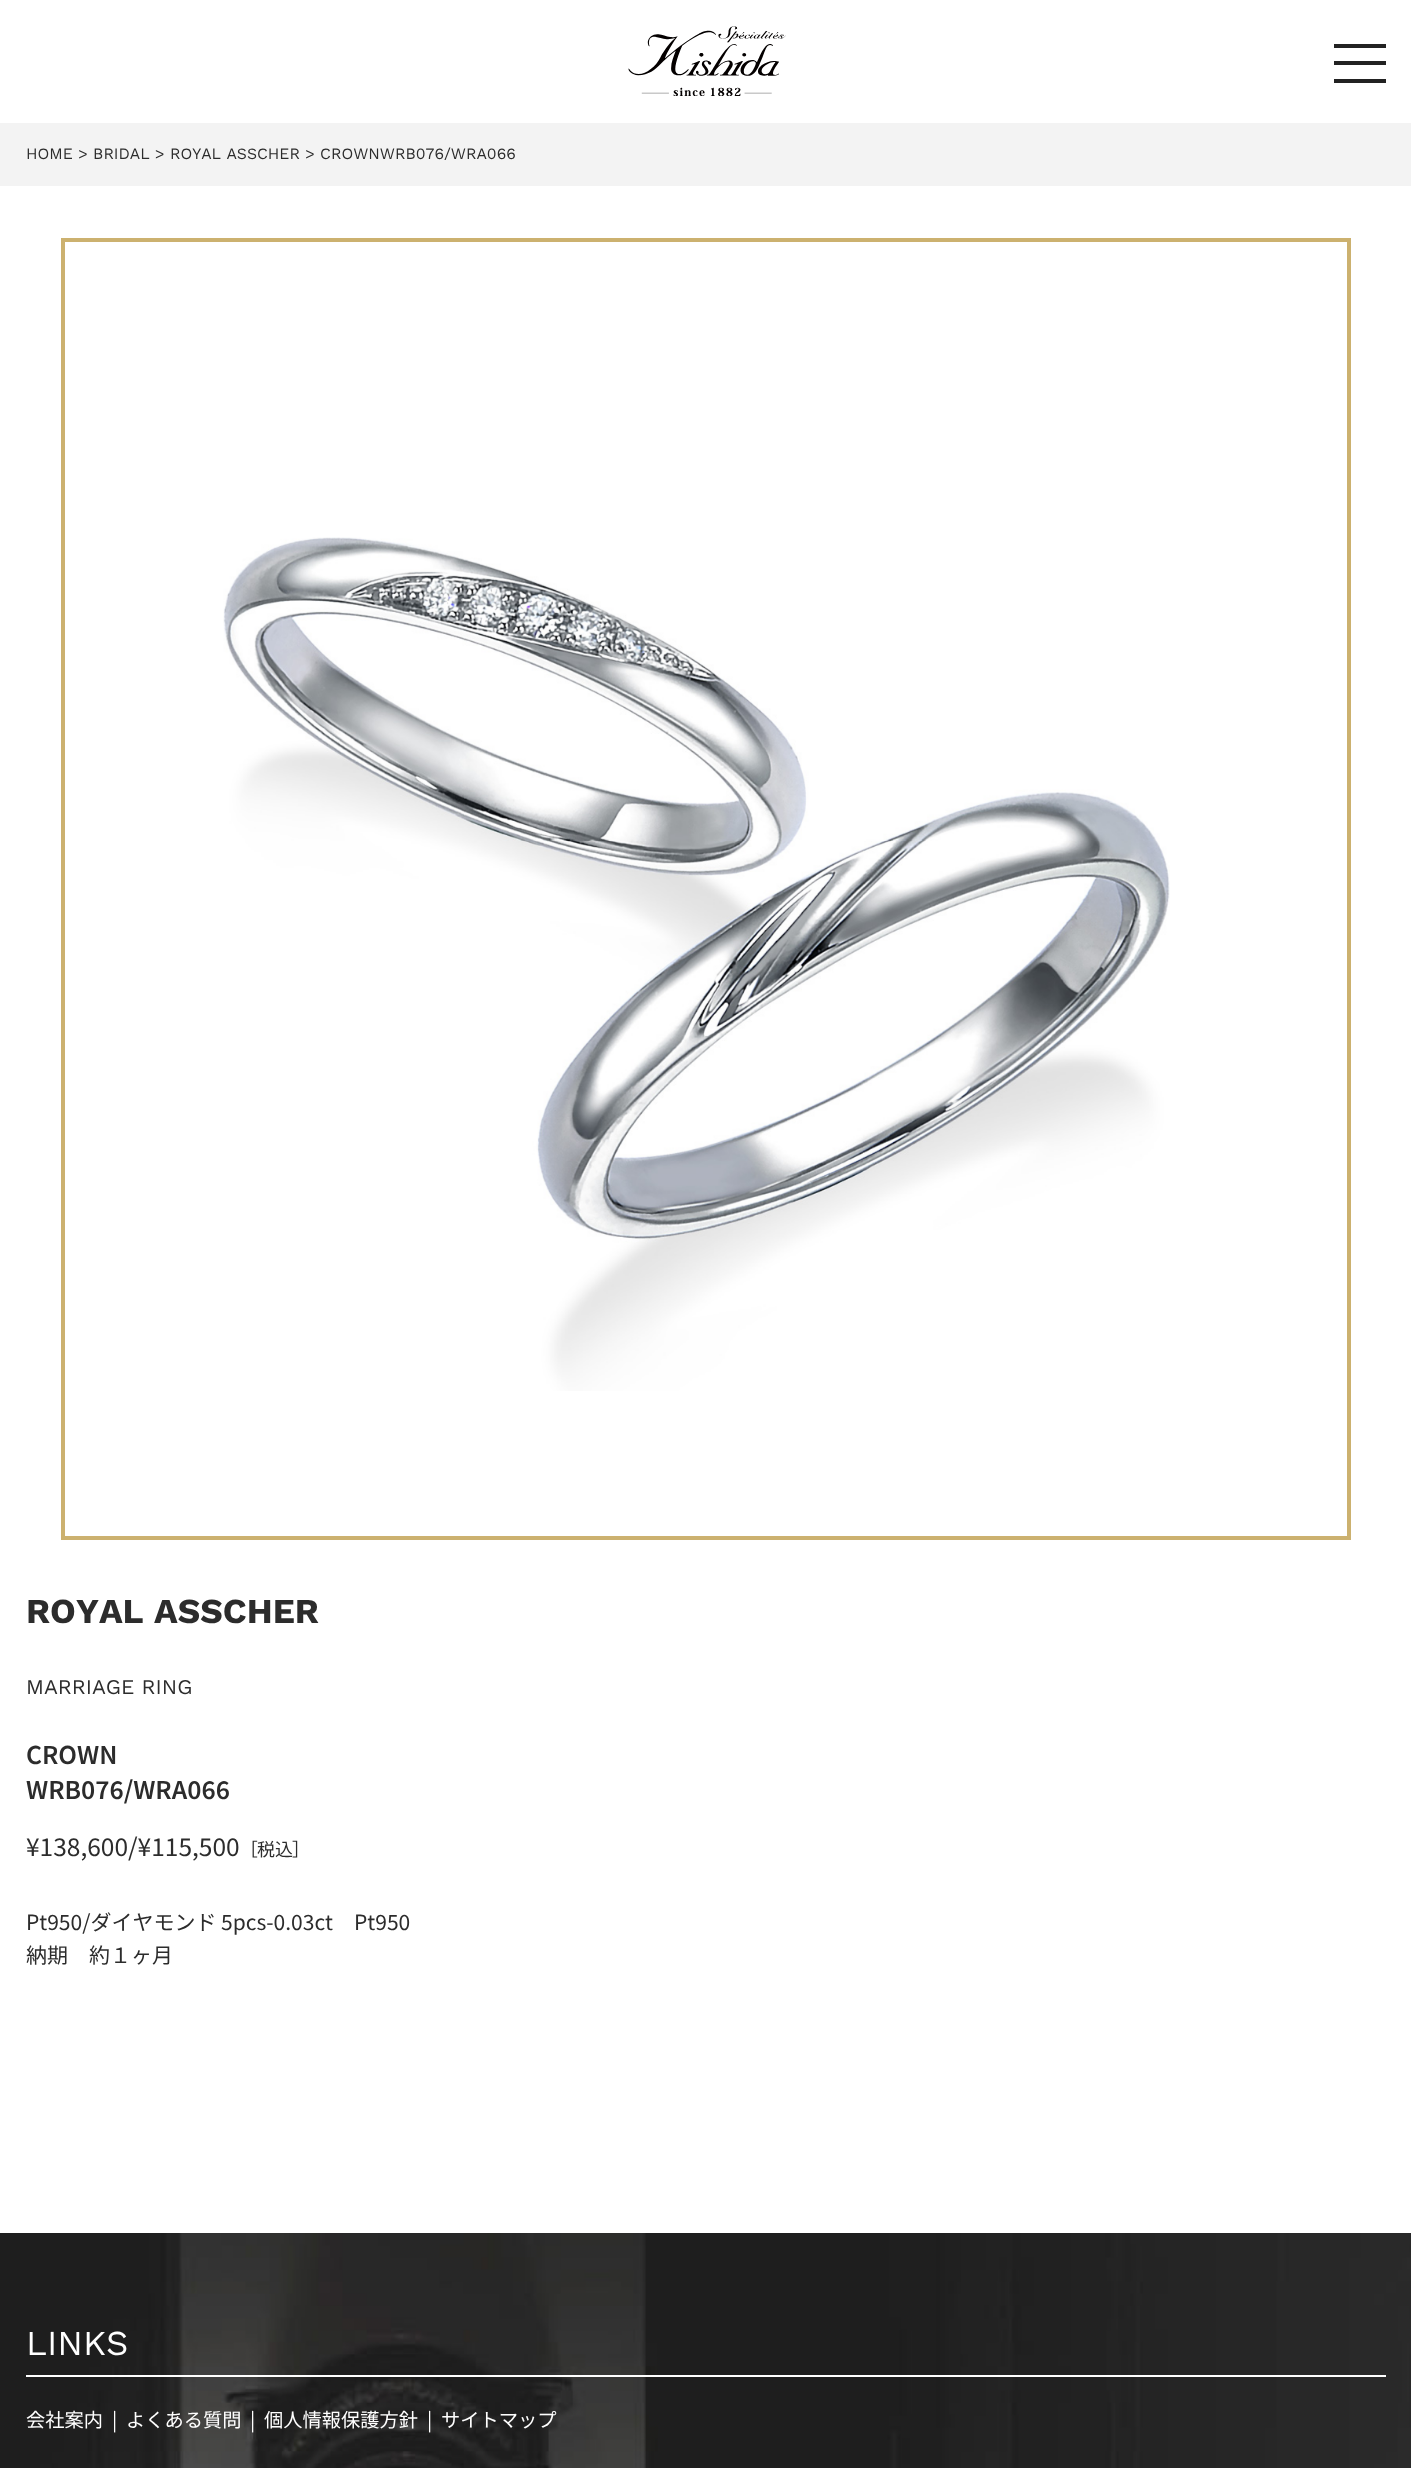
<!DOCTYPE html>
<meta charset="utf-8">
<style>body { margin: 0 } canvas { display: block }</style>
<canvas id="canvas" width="1411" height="2468"></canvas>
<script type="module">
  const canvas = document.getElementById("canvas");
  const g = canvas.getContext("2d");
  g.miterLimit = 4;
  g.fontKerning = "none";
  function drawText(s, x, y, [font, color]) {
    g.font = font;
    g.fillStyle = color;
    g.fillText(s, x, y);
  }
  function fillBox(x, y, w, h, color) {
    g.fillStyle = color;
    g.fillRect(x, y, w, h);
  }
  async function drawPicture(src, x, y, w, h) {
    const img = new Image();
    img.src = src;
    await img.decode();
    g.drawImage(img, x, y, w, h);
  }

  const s1 = ["15.75px Work Sans", "#2C2C2C"];
  const s2 = ["bold 35px Work Sans", "#2C2C2C"];
  const s3 = ["21px Work Sans", "#2C2C2C"];
  const s4 = ["600 24.5px Noto Sans JP", "#2C2C2C"];
  const s5 = ["24.5px Noto Sans JP", "#2C2C2C"];
  const s6 = ["18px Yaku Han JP", "#2C2C2C"];
  const s7 = ["18px Noto Sans JP", "#2C2C2C"];
  const s8 = ["21px Noto Sans JP", "#2C2C2C"];
  const s9 = ["35px Work Sans", "#FFFFFF"];
  const s10 = ["19.25px Noto Sans JP", "#FFFFFF"];

  fillBox(0, 0, 1411, 2468, "#FFFFFF");
  await drawPicture("pic1.png", 628, 26, 158, 70);
  fillBox(1334, 61, 52, 4, "#222222");
  fillBox(1334, 44, 52, 4, "#222222");
  fillBox(1334, 79, 52, 4, "#222222");
  fillBox(0, 123, 1411, 63, "#F3F3F3");
  drawText("HOME > BRIDAL > ROYAL ASSCHER > CROWNWRB076/WRA066", 26, 159, s1);
  g.strokeStyle = "#CCB16F";
  g.lineWidth = 4;
  g.strokeRect(63, 240, 1286, 1298);
  await drawPicture("pic2.png", 223, 537, 947, 854);
  drawText("ROYAL", 26, 1623, s2);
  drawText("ASSCHER", 154, 1623, s2);
  drawText("MARRIAGE RING", 26, 1694, s3);
  drawText("CROWN", 26, 1764, s4);
  drawText("WRB076/WRA066", 26, 1799, s4);
  drawText("¥138,600/¥115,500", 26, 1856, s5);
  drawText("［", 249, 1856, s6);
  drawText("税込", 257, 1856, s7);
  drawText("］", 292, 1856, s6);
  drawText("Pt950/ダイヤモンド 5pcs-0.03ct　Pt950", 26, 1930, s8);
  drawText("納期　約１ヶ月", 26, 1963, s8);
  await drawPicture("pic3.png", 0, 2233, 1411, 235);
  fillBox(26, 2375, 1360, 2, "#FFFFFF");
  drawText("LINKS", 26, 2355, s9);
  drawText("会社案内", 26, 2427, s10);
  drawText("|", 112, 2427, s10);
  drawText("よくある質問", 126, 2427, s10);
  drawText("|", 250, 2427, s10);
  drawText("個人情報保護方針", 264, 2427, s10);
  drawText("|", 427, 2427, s10);
  drawText("サイトマップ", 441, 2427, s10);
</script>
